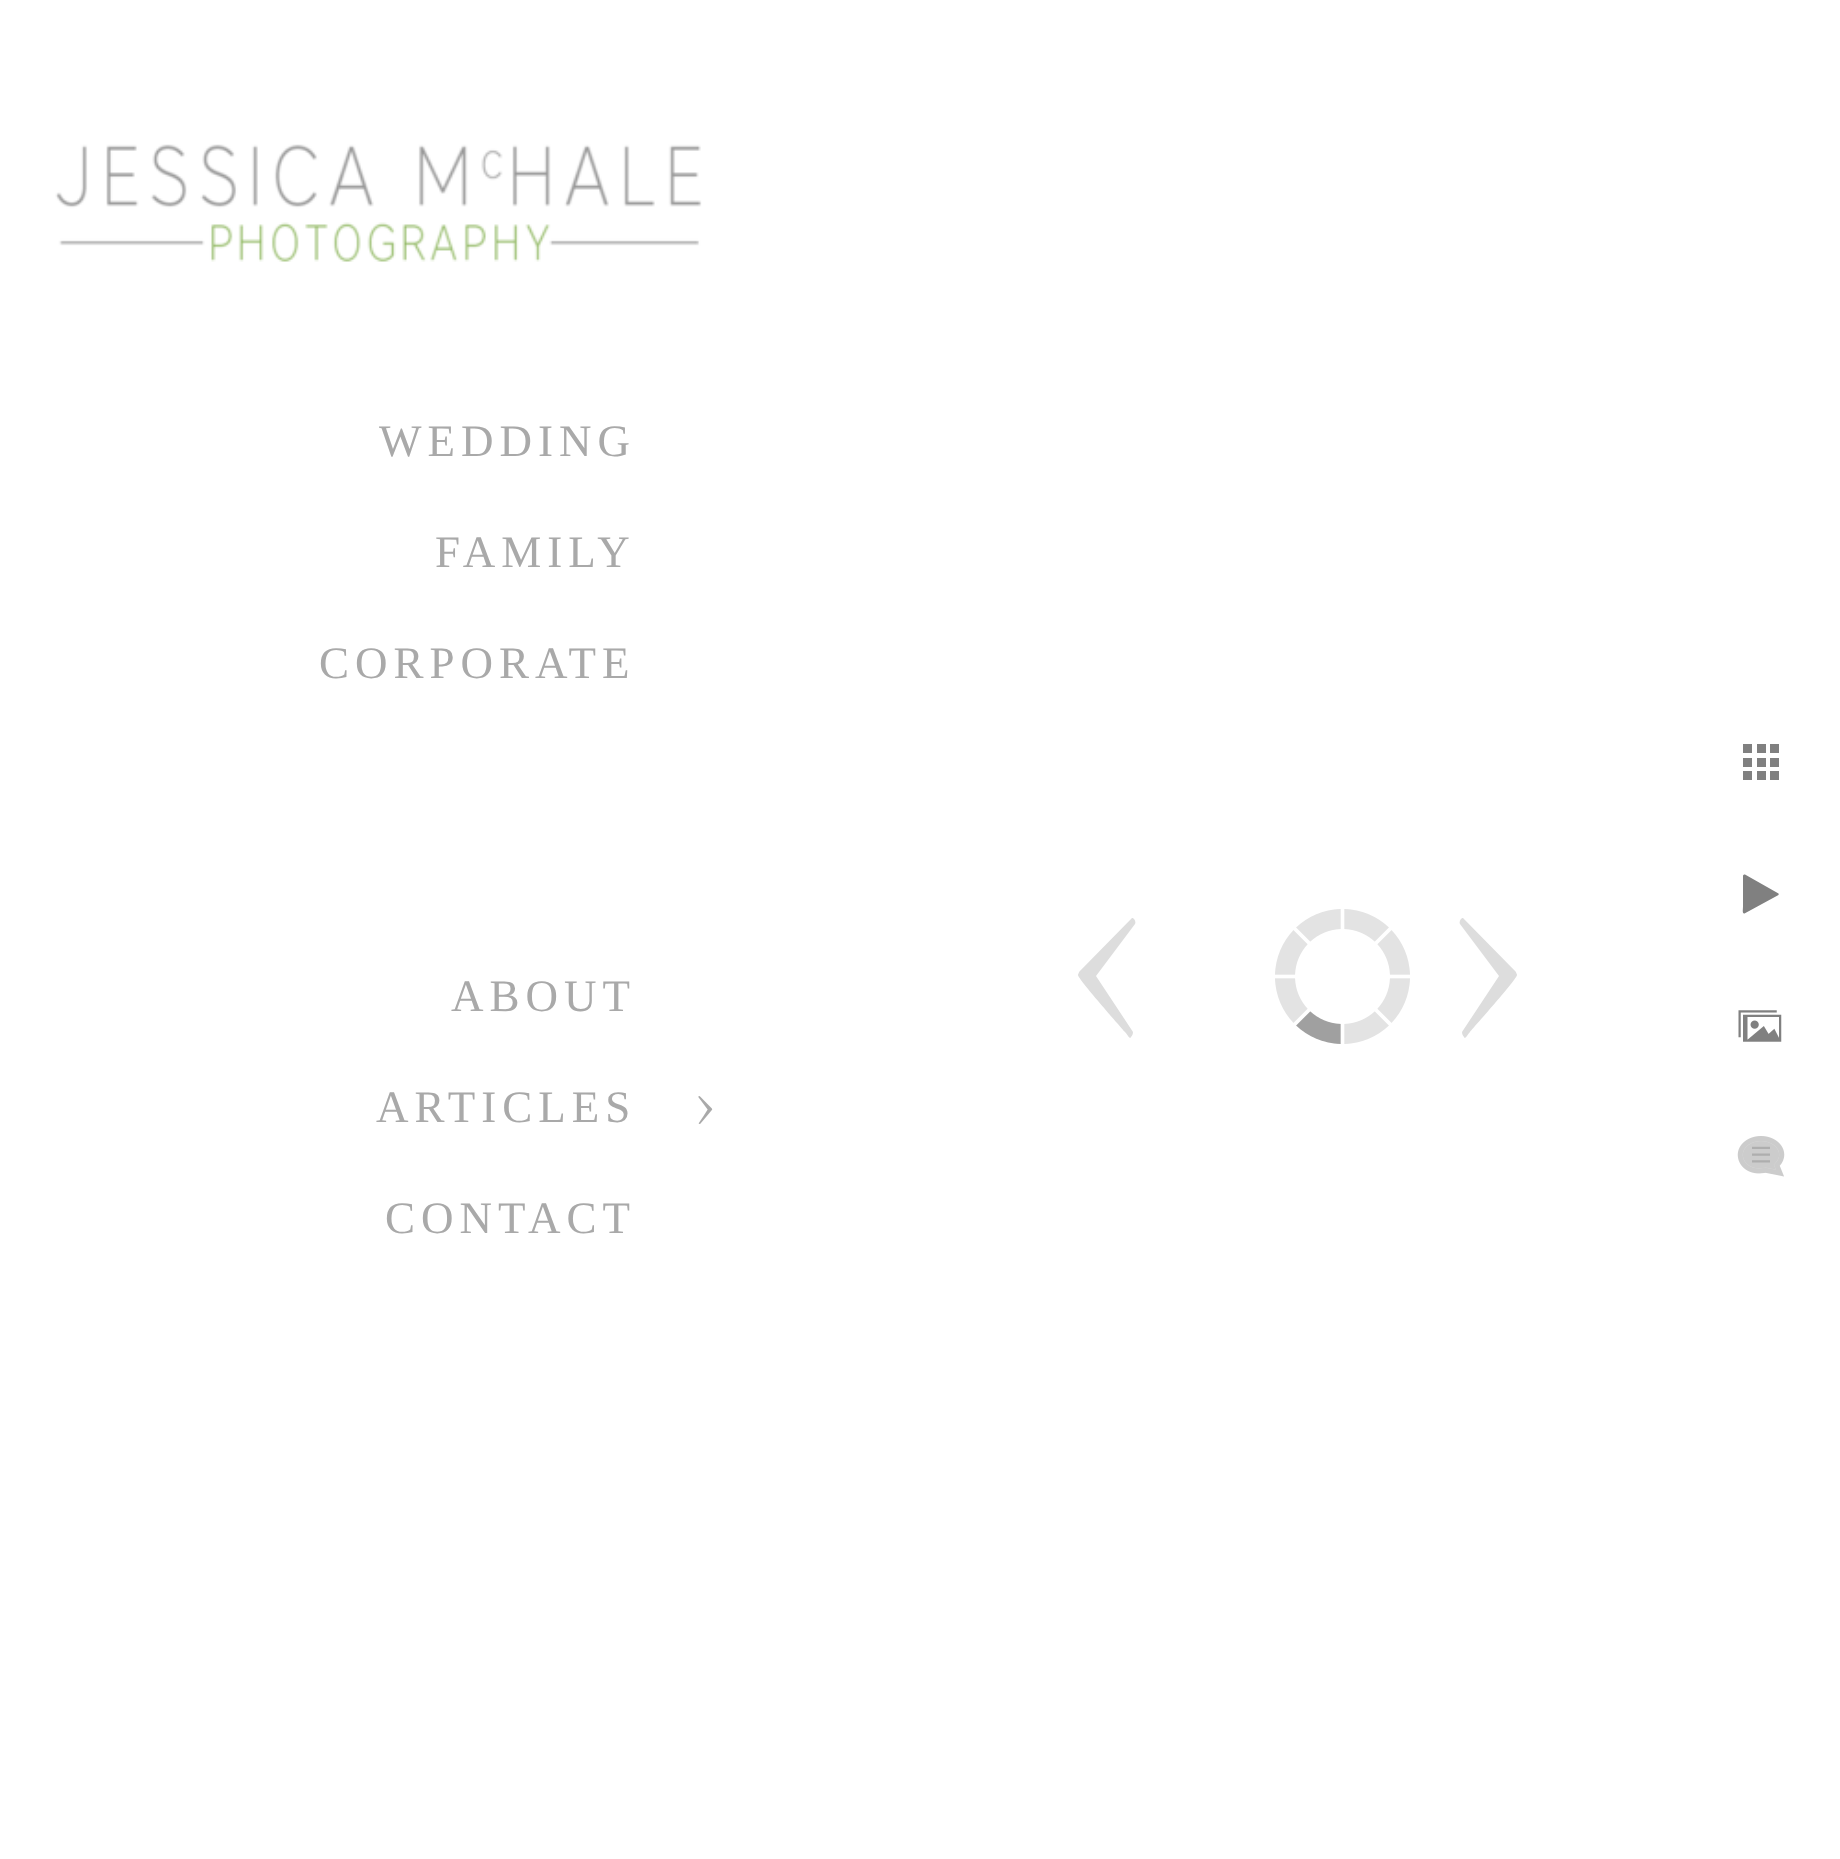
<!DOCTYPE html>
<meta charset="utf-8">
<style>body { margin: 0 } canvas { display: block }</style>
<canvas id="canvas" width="1840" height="1859"></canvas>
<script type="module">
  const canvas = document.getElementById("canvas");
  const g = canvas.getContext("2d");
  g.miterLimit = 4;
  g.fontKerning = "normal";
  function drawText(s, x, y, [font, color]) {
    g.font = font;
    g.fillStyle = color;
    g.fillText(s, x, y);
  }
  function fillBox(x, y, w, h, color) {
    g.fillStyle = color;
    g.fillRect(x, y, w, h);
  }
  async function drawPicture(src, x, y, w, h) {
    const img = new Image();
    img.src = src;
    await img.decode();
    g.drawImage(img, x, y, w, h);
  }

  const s1 = ["45px Liberation Serif", "#A9A9A9"];

  fillBox(0, 0, 1840, 1859, "#FFFFFF");
  await drawPicture("pic1.png", 55, 144, 647, 118);
  g.letterSpacing = "6px";
  drawText("WEDDING", 379, 456, s1);
  drawText("FAMILY", 435, 567, s1);
  drawText("CORPORATE", 319, 678, s1);
  drawText("ABOUT", 451, 1011, s1);
  drawText("ARTICLES", 376, 1122, s1);
  await drawPicture("pic2.png", 698, 1096, 15, 28);
  drawText("CONTACT", 385, 1233, s1);
  g.fillStyle = "#DDDDDD";
  g.beginPath();
  g.moveTo(1078, 975);
  g.bezierCurveTo(1078, 974, 1079, 973, 1079, 972);
  g.lineTo(1132, 918);
  g.bezierCurveTo(1133, 918, 1133, 918, 1134, 919);
  g.bezierCurveTo(1135, 920, 1136, 923, 1135, 924);
  g.lineTo(1096, 976);
  g.lineTo(1133, 1032);
  g.bezierCurveTo(1133, 1034, 1132, 1036, 1131, 1037);
  g.bezierCurveTo(1130, 1040, 1127, 1034, 1125, 1032);
  g.bezierCurveTo(1120, 1026, 1078, 979, 1078, 975);
  g.closePath();
  g.fill();
  await drawPicture("pic3.png", 1275, 909, 135, 135);
  g.beginPath();
  g.moveTo(1517, 975);
  g.bezierCurveTo(1517, 974, 1516, 973, 1516, 972);
  g.lineTo(1463, 918);
  g.bezierCurveTo(1462, 918, 1462, 918, 1461, 919);
  g.bezierCurveTo(1460, 920, 1459, 923, 1460, 924);
  g.lineTo(1499, 976);
  g.lineTo(1462, 1032);
  g.bezierCurveTo(1462, 1034, 1463, 1036, 1464, 1037);
  g.bezierCurveTo(1465, 1040, 1468, 1034, 1470, 1032);
  g.bezierCurveTo(1475, 1026, 1517, 979, 1517, 975);
  g.closePath();
  g.fill();
  await drawPicture("pic4.png", 1743, 744, 36, 36);
  g.fillStyle = "#808080";
  g.beginPath();
  g.moveTo(1778.5, 895);
  g.lineTo(1744.5, 913.5);
  g.bezierCurveTo(1742, 914, 1743, 909.5, 1743, 906.5);
  g.lineTo(1743, 875.5);
  g.lineTo(1744, 874.5);
  g.lineTo(1745, 874.5);
  g.lineTo(1778.5, 893.5);
  g.bezierCurveTo(1779, 894, 1778.5, 894.5, 1778.5, 895);
  g.closePath();
  g.fill();
  await drawPicture("pic5.png", 1738, 1010, 44, 32);
  await drawPicture("pic6.png", 1737, 1136, 48, 41);
</script>
